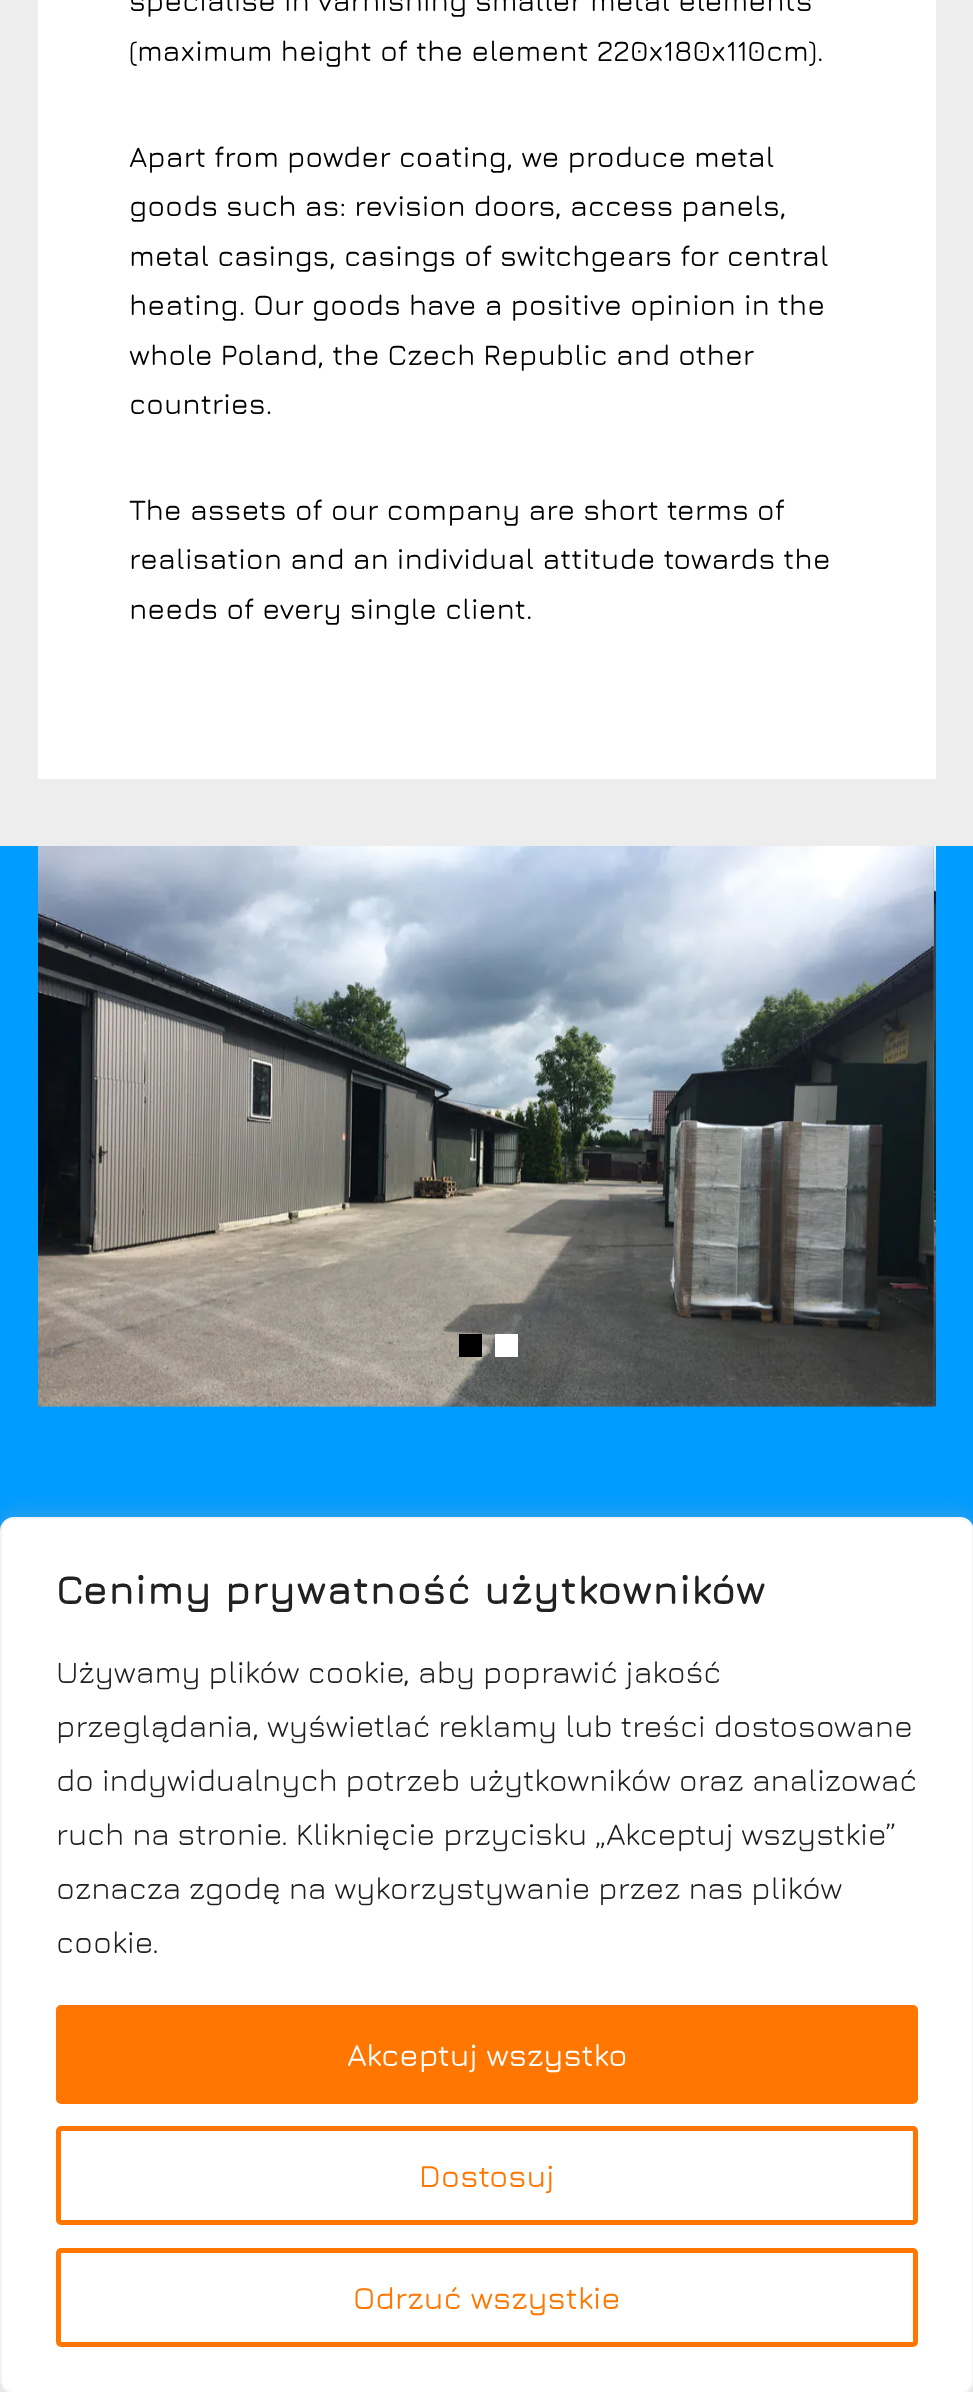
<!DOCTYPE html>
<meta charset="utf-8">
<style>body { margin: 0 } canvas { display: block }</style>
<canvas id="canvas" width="973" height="2392"></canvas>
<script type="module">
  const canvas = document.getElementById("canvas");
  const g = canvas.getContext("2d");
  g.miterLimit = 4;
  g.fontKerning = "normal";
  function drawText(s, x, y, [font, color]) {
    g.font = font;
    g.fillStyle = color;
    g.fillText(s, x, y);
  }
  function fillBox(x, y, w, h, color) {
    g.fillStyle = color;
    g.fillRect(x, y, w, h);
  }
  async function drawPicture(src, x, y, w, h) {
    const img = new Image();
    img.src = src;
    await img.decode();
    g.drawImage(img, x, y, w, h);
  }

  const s1 = ["500 29.25px Jura", "#000000"];
  const s2 = ["bold 40.5px Jura", "#212121"];
  const s3 = ["31.5px Jura", "#212121"];
  const s4 = ["500 31.5px Jura", "#FFFFFF"];
  const s5 = ["500 31.5px Jura", "#FF7700"];

  fillBox(0, 0, 973, 2392, "#EDEDED");
  fillBox(38, 0, 898, 779, "#FFFFFF");
  drawText("specialise in varnishing smaller metal elements", 129, 11, s1);
  drawText("(maximum height of the element 220x180x110cm).", 129, 61, s1);
  drawText("Apart from powder coating, we produce metal", 129, 167, s1);
  drawText("goods such as: revision doors, access panels,", 129, 216, s1);
  drawText("metal casings, casings of switchgears for central", 129, 266, s1);
  drawText("heating. Our goods have a positive opinion in the", 129, 315, s1);
  drawText("whole Poland, the Czech Republic and other", 129, 365, s1);
  drawText("countries.", 129, 414, s1);
  drawText("The assets of our company are short terms of", 129, 520, s1);
  drawText("realisation and an individual attitude towards the", 129, 569, s1);
  drawText("needs of every single client.", 129, 619, s1);
  fillBox(0, 846, 973, 685, "#009CFF");
  await drawPicture("pic1.png", 38, 846, 896, 561);
  await drawPicture("pic2.png", 934, 846, 2, 561);
  fillBox(459, 1334, 23, 23, "#000000");
  fillBox(495, 1334, 23, 23, "#FFFFFF");
  g.fillStyle = "rgba(172, 171, 171, 0.3)";
  g.filter = "blur(11px)";
  g.beginPath();
  g.roundRect(0, 1514, 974, 878, 14);
  g.fill();
  g.filter = "none";
  g.fillStyle = "#FFFFFF";
  g.beginPath();
  g.roundRect(1, 1518, 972, 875, 13);
  g.fill();
  g.strokeStyle = "#F4F4F4";
  g.lineWidth = 2;
  g.stroke();
  drawText("Cenimy prywatność użytkowników", 56, 1604, s2);
  drawText("Używamy plików cookie, aby poprawić jakość", 56, 1683, s3);
  drawText("przeglądania, wyświetlać reklamy lub treści dostosowane", 56, 1737, s3);
  drawText("do indywidualnych potrzeb użytkowników oraz analizować", 56, 1791, s3);
  drawText("ruch na stronie. Kliknięcie przycisku „Akceptuj wszystkie”", 56, 1845, s3);
  drawText("oznacza zgodę na wykorzystywanie przez nas plików", 56, 1899, s3);
  drawText("cookie.", 56, 1953, s3);
  g.fillStyle = "#FF7700";
  g.beginPath();
  g.roundRect(58.5, 2007.5, 857, 94, 2.5);
  g.fill();
  g.strokeStyle = "#FF7700";
  g.lineWidth = 5;
  g.stroke();
  drawText("Akceptuj wszystko", 347, 2066, s4);
  g.beginPath();
  g.roundRect(58.5, 2128.5, 857, 94, 2.5);
  g.stroke();
  drawText("Dostosuj", 419, 2187, s5);
  g.beginPath();
  g.roundRect(58.5, 2250.5, 857, 94, 2.5);
  g.stroke();
  drawText("Odrzuć wszystkie", 353, 2309, s5);
</script>
